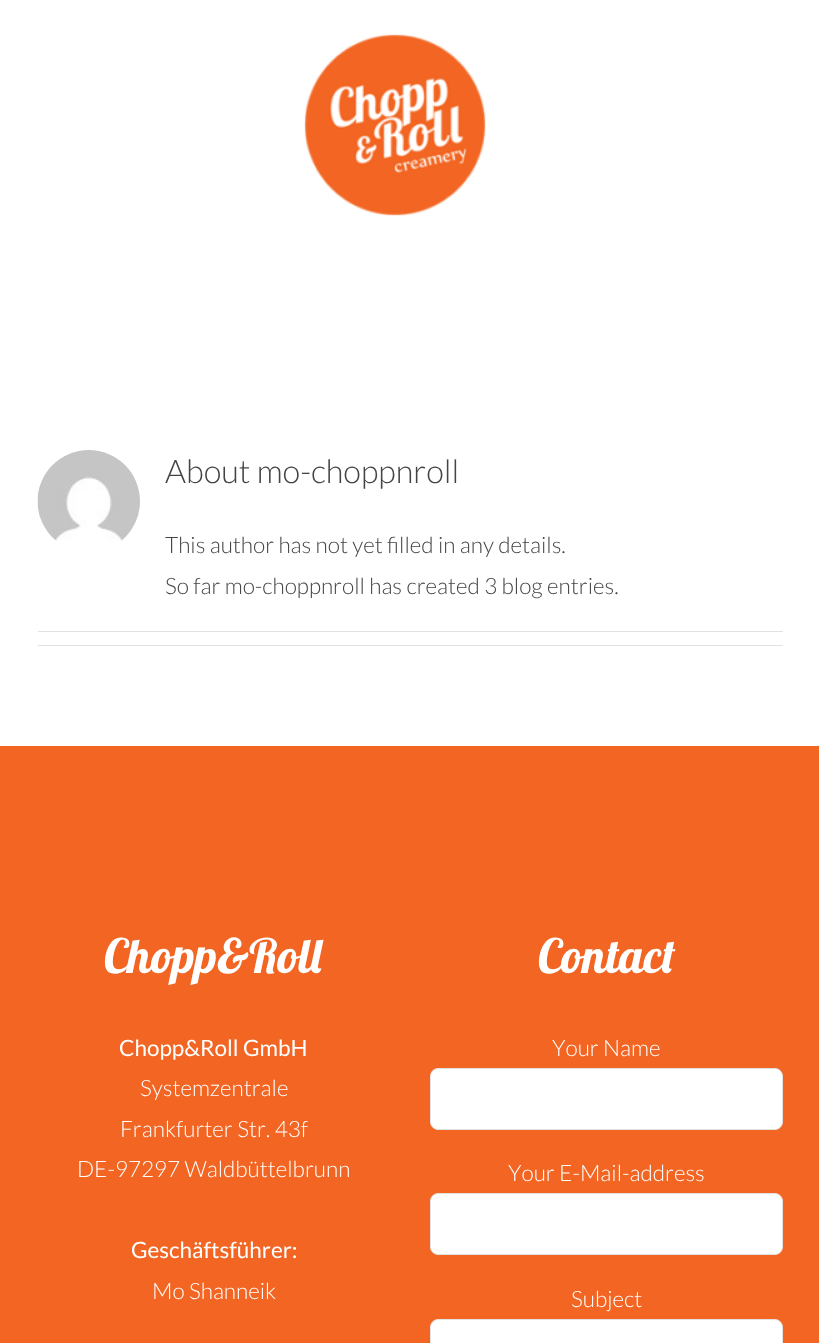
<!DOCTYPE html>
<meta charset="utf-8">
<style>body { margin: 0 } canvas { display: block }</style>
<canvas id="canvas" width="819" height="1343"></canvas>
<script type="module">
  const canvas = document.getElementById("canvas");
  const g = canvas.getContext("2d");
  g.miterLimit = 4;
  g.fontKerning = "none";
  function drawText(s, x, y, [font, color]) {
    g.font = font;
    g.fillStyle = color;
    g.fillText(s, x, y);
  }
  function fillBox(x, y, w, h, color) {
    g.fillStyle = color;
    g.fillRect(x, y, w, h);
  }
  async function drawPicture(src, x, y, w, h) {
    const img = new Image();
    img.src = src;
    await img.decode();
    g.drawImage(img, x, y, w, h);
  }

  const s1 = ["300 32.5px Lato", "#444444"];
  const s2 = ["300 22.5px Lato", "#444444"];
  const s3 = ["47.5px Lobster", "#FFFFFF"];
  const s4 = ["22.5px Lato", "#FFFFFF"];
  const s5 = ["300 22.5px Lato", "#FFFFFF"];

  fillBox(0, 0, 819, 1343, "#FFFFFF");
  await drawPicture("pic1.png", 304, 34, 182, 182);
  await drawPicture("pic2.png", 37, 450, 103, 91);
  drawText("About mo-choppnroll", 165, 483, s1);
  drawText("This author has not yet filled in any details.", 165, 553, s2);
  drawText("So far mo-choppnroll has created 3 blog entries.", 165, 594, s2);
  fillBox(38, 631, 745, 1, "#E2E2E2");
  fillBox(38, 645, 745, 1, "#E2E2E2");
  fillBox(0, 746, 819, 597, "#F26522");
  drawText("Chopp&Roll", 104, 973, s3);
  drawText("Chopp&Roll GmbH", 119, 1056, s4);
  drawText("Systemzentrale", 140, 1096, s5);
  drawText("Frankfurter Str. 43f", 120, 1137, s5);
  drawText("DE-97297 Waldbüttelbrunn", 77, 1177, s5);
  drawText("Geschäftsführer:", 131, 1258, s4);
  drawText("Mo Shanneik", 152, 1299, s5);
  drawText("Contact", 538, 973, s3);
  drawText("Your Name", 552, 1056, s5);
  g.beginPath();
  g.roundRect(430.5, 1068.5, 352, 61, 7.5);
  g.fill();
  g.strokeStyle = "#E2E2E2";
  g.stroke();
  drawText("Your E-Mail-address", 508, 1181, s5);
  g.beginPath();
  g.roundRect(430.5, 1193.5, 352, 61, 7.5);
  g.fill();
  g.stroke();
  drawText("Subject", 571, 1307, s5);
  g.beginPath();
  g.roundRect(430.5, 1319.5, 352, 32, 7.5);
  g.fill();
  g.stroke();
</script>
